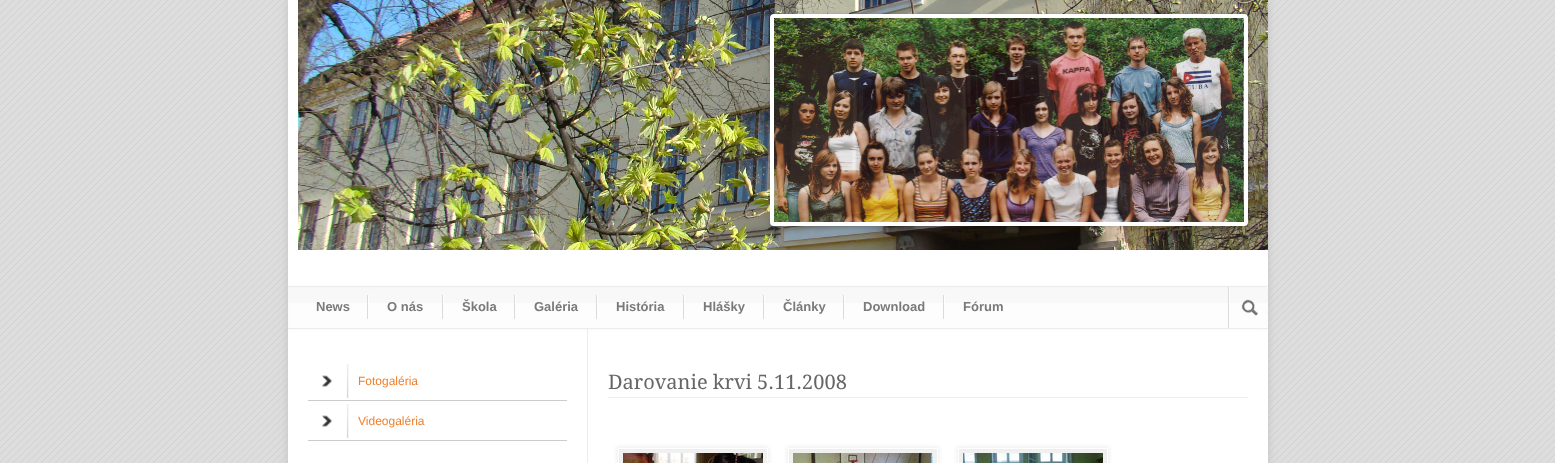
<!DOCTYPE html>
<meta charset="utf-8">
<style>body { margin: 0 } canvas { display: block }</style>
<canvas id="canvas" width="1555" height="463"></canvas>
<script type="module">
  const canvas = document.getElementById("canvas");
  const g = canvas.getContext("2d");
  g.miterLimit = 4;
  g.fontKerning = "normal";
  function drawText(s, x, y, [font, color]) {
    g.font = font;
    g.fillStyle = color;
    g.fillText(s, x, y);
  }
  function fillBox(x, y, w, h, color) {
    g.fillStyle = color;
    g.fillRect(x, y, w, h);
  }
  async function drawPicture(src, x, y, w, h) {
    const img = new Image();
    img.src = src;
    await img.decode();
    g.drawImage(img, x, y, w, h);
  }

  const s1 = ["bold 13px Liberation Sans", "#7A7A7A"];
  const s2 = ["12px Liberation Sans", "#EF7F2C"];
  const s3 = ["20px Droid Serif", "#666666"];

  fillBox(0, 0, 1555, 463, "#DDDDDD");
  await drawPicture("pic1.png", 0, 0, 1555, 463);
  g.fillStyle = "#C2C2C2";
  g.filter = "blur(4px)";
  g.beginPath();
  g.rect(288, 0, 980, 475);
  g.fill();
  g.filter = "none";
  fillBox(288, 0, 980, 463, "#FFFFFF");
  await drawPicture("pic2.png", 298, 0, 970, 250);
  g.save();
  g.beginPath();
  g.moveTo(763, 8);
  g.lineTo(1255, 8);
  g.lineTo(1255, 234);
  g.lineTo(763, 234);
  g.closePath();
  g.moveTo(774, 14);
  g.lineTo(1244, 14);
  g.bezierCurveTo(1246, 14, 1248, 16, 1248, 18);
  g.lineTo(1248, 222);
  g.bezierCurveTo(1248, 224, 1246, 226, 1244, 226);
  g.lineTo(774, 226);
  g.bezierCurveTo(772, 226, 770, 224, 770, 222);
  g.lineTo(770, 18);
  g.bezierCurveTo(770, 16, 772, 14, 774, 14);
  g.closePath();
  g.clip("evenodd");
  g.fillStyle = "rgba(0, 0, 0, 0.2)";
  g.filter = "blur(2px)";
  g.beginPath();
  g.roundRect(770, 15, 478, 212, 4);
  g.fill();
  g.filter = "none";
  g.restore();
  g.beginPath();
  g.roundRect(772, 16, 474, 208, 2);
  g.strokeStyle = "#FFFFFF";
  g.lineWidth = 4;
  g.stroke();
  await drawPicture("pic3.png", 774, 18, 469, 204);
  g.save();
  g.beginPath();
  g.rect(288, 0, 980, 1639);
  g.clip();
  g.fillStyle = "#F5F5F5";
  g.filter = "blur(2.5px)";
  g.beginPath();
  g.rect(289, 288, 978, 41);
  g.fill();
  g.filter = "none";
  g.restore();
  fillBox(289, 288, 978, 40, "#FDFDFD");
  await drawPicture("pic4.png", 288, 287, 980, 16);
  fillBox(288, 286, 980, 1, "#ECECEC");
  fillBox(288, 328, 980, 1, "#ECECEC");
  fillBox(367, 295, 1, 24, "#DBDBDB");
  drawText("News", 316, 311, s1);
  fillBox(442, 295, 1, 24, "#DBDBDB");
  fillBox(368, 295, 1, 8, "#FFFFFF");
  drawText("O nás", 387, 311, s1);
  fillBox(514, 295, 1, 24, "#DBDBDB");
  fillBox(443, 295, 1, 8, "#FFFFFF");
  drawText("Škola", 462, 311, s1);
  fillBox(596, 295, 1, 24, "#DBDBDB");
  fillBox(515, 295, 1, 8, "#FFFFFF");
  drawText("Galéria", 534, 311, s1);
  fillBox(683, 295, 1, 24, "#DBDBDB");
  fillBox(597, 295, 1, 8, "#FFFFFF");
  drawText("História", 616, 311, s1);
  fillBox(763, 295, 1, 24, "#DBDBDB");
  fillBox(684, 295, 1, 8, "#FFFFFF");
  drawText("Hlášky", 703, 311, s1);
  fillBox(843, 295, 1, 24, "#DBDBDB");
  fillBox(764, 295, 1, 8, "#FFFFFF");
  drawText("Články", 783, 311, s1);
  fillBox(943, 295, 1, 24, "#DBDBDB");
  fillBox(844, 295, 1, 8, "#FFFFFF");
  drawText("Download", 863, 311, s1);
  fillBox(944, 295, 1, 8, "#FFFFFF");
  drawText("Fórum", 963, 311, s1);
  fillBox(1228, 287, 1, 41, "#DBDBDB");
  fillBox(1229, 287, 1, 16, "#FFFFFF");
  await drawPicture("pic5.png", 1241, 299, 17, 17);
  fillBox(587, 329, 1, 134, "#ECECEC");
  fillBox(308, 400, 259, 1, "#CCCCCC");
  await drawPicture("pic6.png", 322, 364, 27, 34);
  drawText("Fotogaléria", 358, 385, s2);
  fillBox(308, 440, 259, 1, "#CCCCCC");
  await drawPicture("pic6.png", 322, 404, 27, 34);
  drawText("Videogaléria", 358, 425, s2);
  fillBox(608, 397, 640, 1, "#ECECEC");
  drawText("Darovanie krvi 5.11.2008", 608, 389, s3);
  g.fillStyle = "#ECECEC";
  g.filter = "blur(2px)";
  g.beginPath();
  g.rect(617, 447, 152, 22);
  g.fill();
  g.filter = "none";
  fillBox(620, 450, 146, 13, "#F0F0F0");
  g.lineWidth = 1;
  g.strokeRect(618.5, 448.5, 149, 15);
  await drawPicture("pic7.png", 623, 453, 140, 10);
  g.fillStyle = "#ECECEC";
  g.filter = "blur(2px)";
  g.beginPath();
  g.rect(787, 447, 152, 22);
  g.fill();
  g.filter = "none";
  fillBox(790, 450, 146, 13, "#F0F0F0");
  g.strokeRect(788.5, 448.5, 149, 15);
  await drawPicture("pic8.png", 793, 453, 140, 10);
  g.fillStyle = "#ECECEC";
  g.filter = "blur(2px)";
  g.beginPath();
  g.rect(957, 447, 152, 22);
  g.fill();
  g.filter = "none";
  fillBox(960, 450, 146, 13, "#F0F0F0");
  g.strokeRect(958.5, 448.5, 149, 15);
  await drawPicture("pic9.png", 963, 453, 140, 10);
</script>
